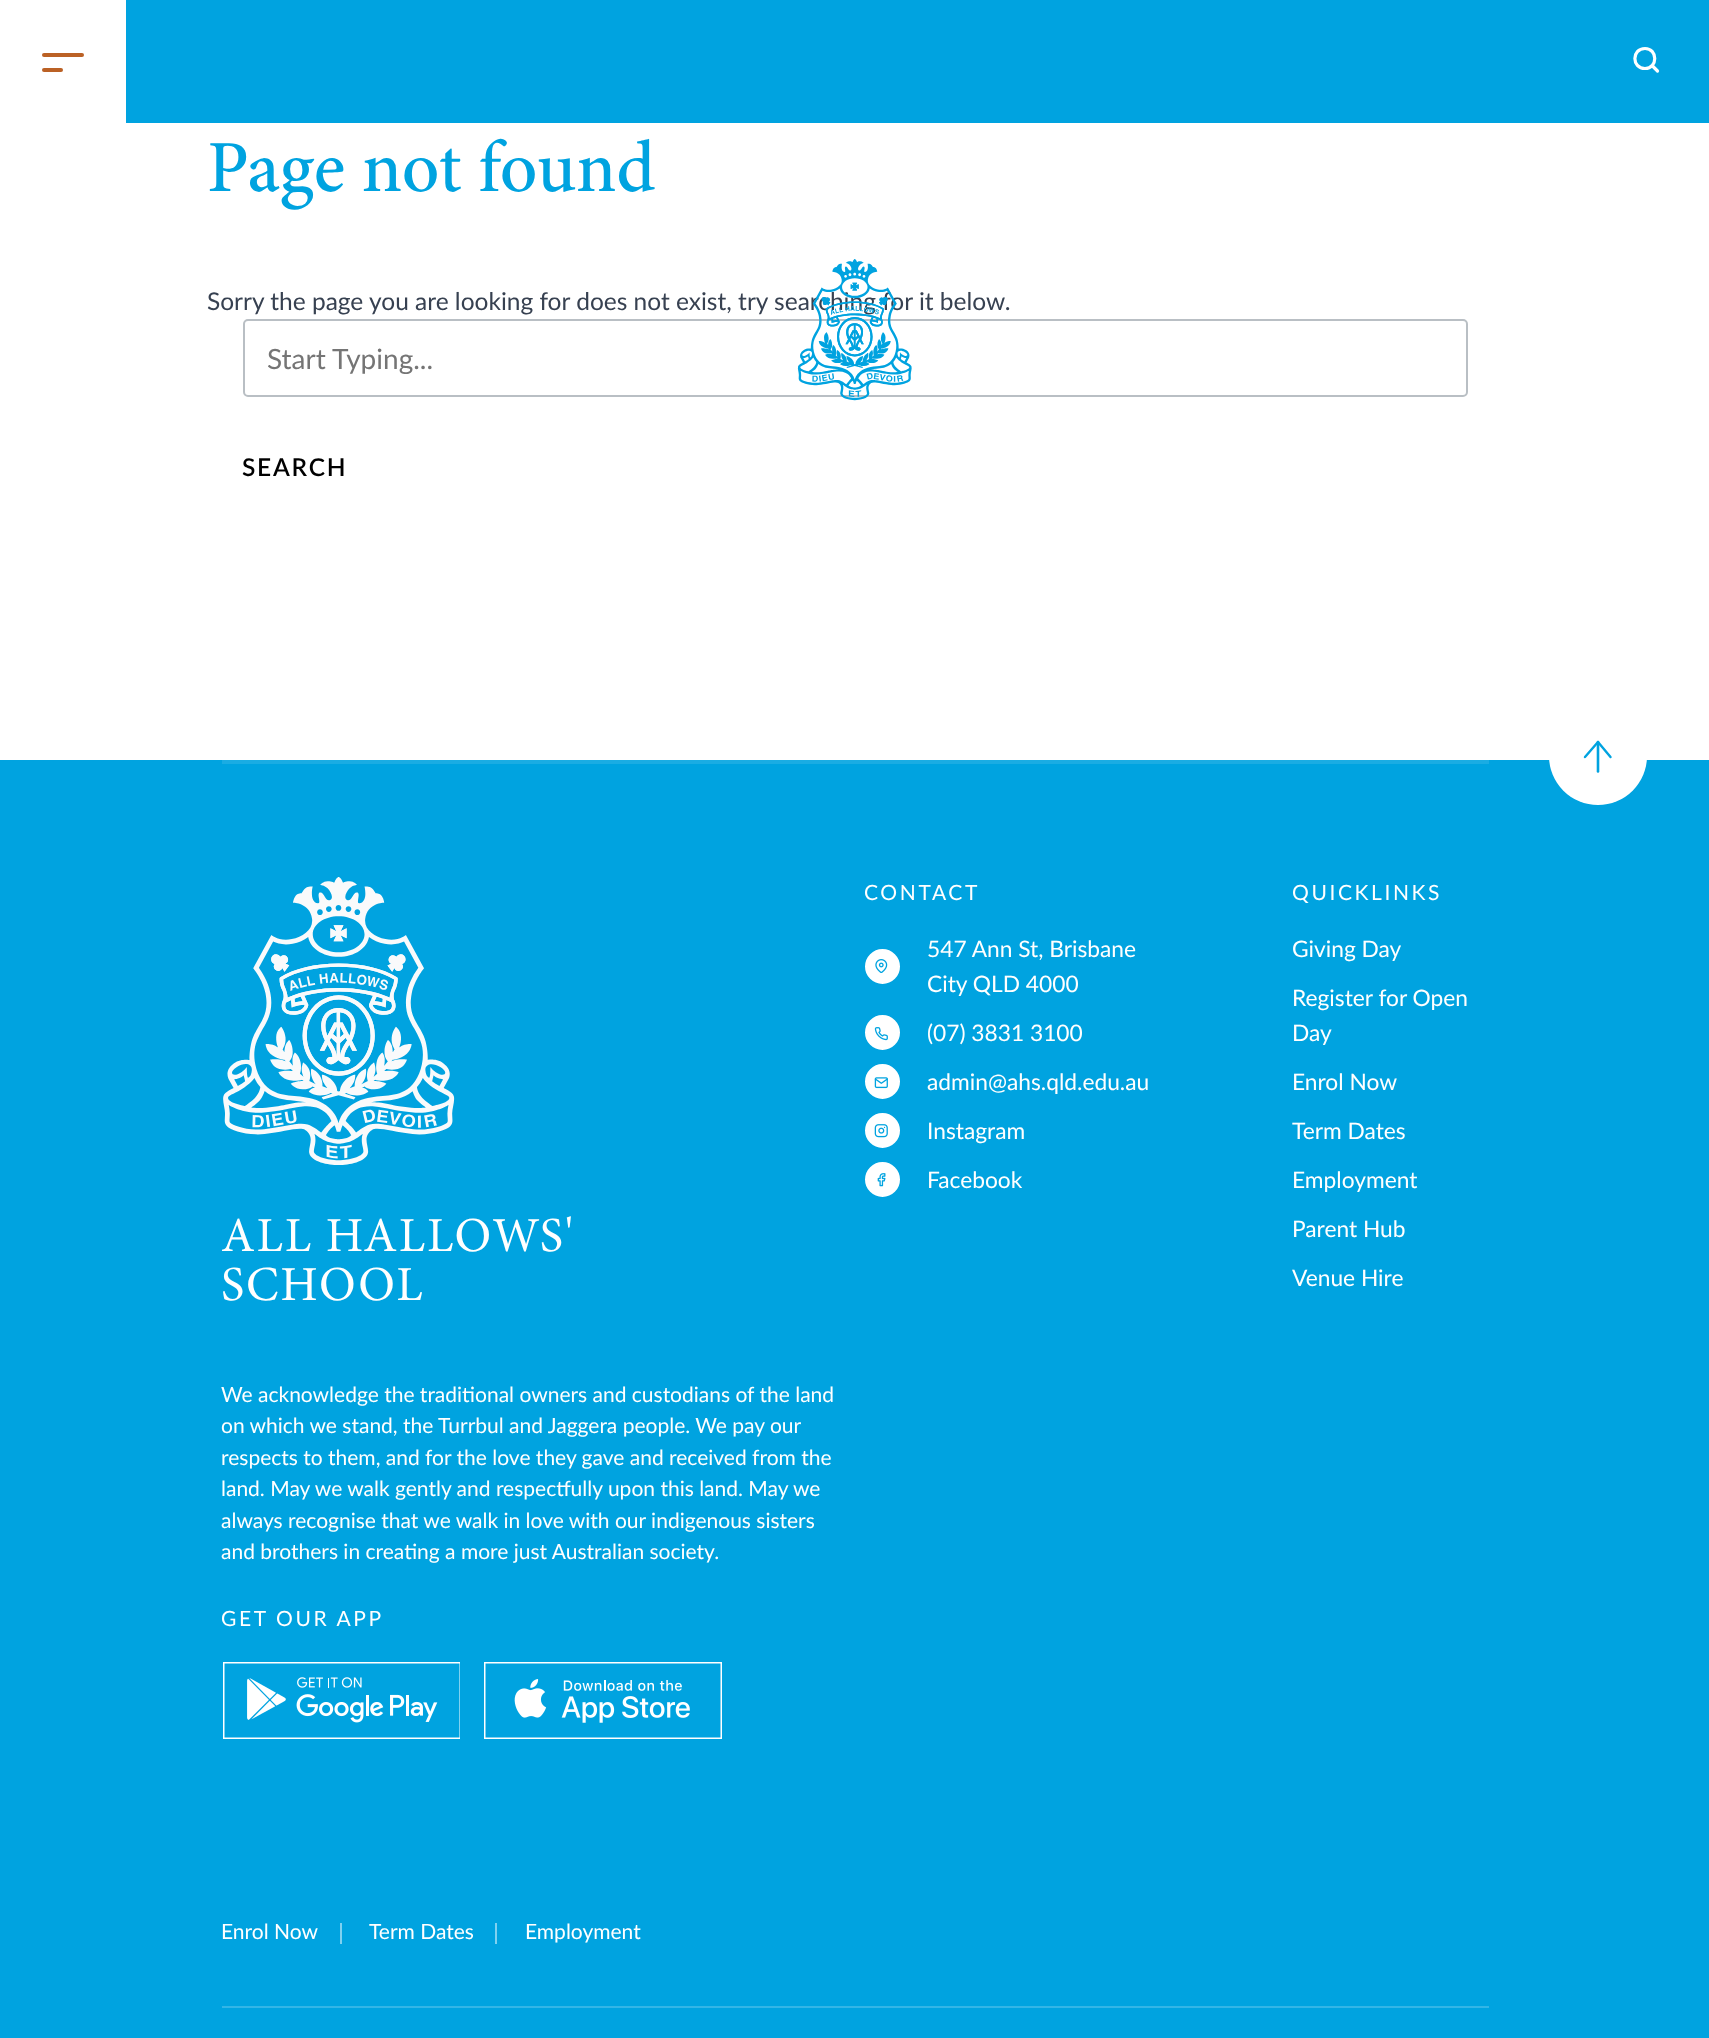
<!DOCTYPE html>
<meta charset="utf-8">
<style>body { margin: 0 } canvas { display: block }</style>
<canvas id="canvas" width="1709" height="2038"></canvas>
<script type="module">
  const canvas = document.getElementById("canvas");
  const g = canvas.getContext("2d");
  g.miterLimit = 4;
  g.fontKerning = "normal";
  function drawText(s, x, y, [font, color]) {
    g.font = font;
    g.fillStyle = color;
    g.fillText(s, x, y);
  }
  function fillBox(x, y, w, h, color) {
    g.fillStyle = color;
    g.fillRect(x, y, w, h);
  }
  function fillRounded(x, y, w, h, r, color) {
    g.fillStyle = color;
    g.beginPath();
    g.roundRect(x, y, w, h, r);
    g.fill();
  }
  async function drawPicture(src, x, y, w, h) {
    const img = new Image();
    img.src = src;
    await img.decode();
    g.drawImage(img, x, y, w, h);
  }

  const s1 = ["24.5px Lato", "#374151"];
  const s2 = ["500 73.5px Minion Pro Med", "#00A3E0"];
  const s3 = ["28px Lato", "#757575"];
  const s4 = ["600 24.5px Lato", "#000000"];
  const s5 = ["21px Lato", "#FFFFFF"];
  const s6 = ["22.75px Lato", "#FFFFFF"];
  const s7 = ["49px Minion", "#FFFFFF"];

  fillBox(0, 0, 1709, 2038, "#FFFFFF");
  fillBox(126, 0, 1583, 123, "#00A3E0");
  fillRounded(42, 53, 42, 4, 2, "#BB6125");
  fillRounded(42, 68, 21, 4, 2, "#BB6125");
  g.beginPath();
  g.moveTo(1645, 68.5);
  g.bezierCurveTo(1658, 68.5, 1658, 48.5, 1645, 48.5);
  g.bezierCurveTo(1631.5, 48.5, 1631.5, 68.5, 1645, 68.5);
  g.closePath();
  g.moveTo(1657.5, 71);
  g.lineTo(1652, 65.5);
  g.strokeStyle = "#FFFFFF";
  g.lineWidth = 3.2;
  g.lineCap = "round";
  g.lineJoin = "round";
  g.stroke();
  drawText("Sorry the page you are looking for does not exist, try searching for it below.", 207, 310, s1);
  g.beginPath();
  g.roundRect(244, 320, 1223, 76, 4);
  g.strokeStyle = "#B9BFC4";
  g.lineWidth = 2;
  g.lineJoin = "miter";
  g.stroke();
  await drawPicture("pic1.png", 797, 259, 115, 142);
  drawText("Page not found", 207, 191, s2);
  drawText("Start Typing...", 267, 369, s3);
  g.letterSpacing = "1.75px";
  drawText("SEARCH", 242, 476, s4);
  fillBox(0, 760, 1709, 1278, "#00A3E0");
  g.fillStyle = "#FFFFFF";
  g.beginPath();
  g.arc(1598, 756, 49, 0, Math.PI * 2);
  g.fill();
  g.beginPath();
  g.moveTo(1598, 771.5);
  g.lineTo(1598, 742);
  g.strokeStyle = "#00A3E0";
  g.lineWidth = 2.6;
  g.lineJoin = "round";
  g.stroke();
  g.beginPath();
  g.moveTo(1585, 757);
  g.lineTo(1598, 742);
  g.lineTo(1610.5, 757);
  g.lineWidth = 2.4;
  g.stroke();
  fillBox(222, 760, 1267, 4, "#1AACE3");
  g.letterSpacing = "2.6px";
  drawText("CONTACT", 864, 900, s5);
  g.beginPath();
  g.arc(882.5, 966.5, 16.5, 0, Math.PI * 2);
  g.fill();
  g.strokeStyle = "#FFFFFF";
  g.lineWidth = 2;
  g.stroke();
  await drawPicture("pic2.png", 875, 959, 13, 14);
  g.letterSpacing = "0px";
  drawText("547 Ann St, Brisbane", 927, 957, s6);
  drawText("City QLD 4000", 927, 992, s6);
  g.beginPath();
  g.arc(882.5, 1032.5, 16.5, 0, Math.PI * 2);
  g.fill();
  g.stroke();
  await drawPicture("pic3.png", 874, 1027, 14, 14);
  drawText("(07) 3831 3100", 927, 1041, s6);
  g.beginPath();
  g.arc(882.5, 1081.5, 16.5, 0, Math.PI * 2);
  g.fill();
  g.stroke();
  await drawPicture("pic4.png", 874, 1077, 14, 12);
  drawText("admin@ahs.qld.edu.au", 927, 1090, s6);
  g.beginPath();
  g.arc(882.5, 1130.5, 16.5, 0, Math.PI * 2);
  g.fill();
  g.stroke();
  await drawPicture("pic5.png", 874, 1124, 14, 14);
  drawText("Instagram", 927, 1139, s6);
  g.beginPath();
  g.arc(882.5, 1179.5, 16.5, 0, Math.PI * 2);
  g.fill();
  g.stroke();
  await drawPicture("pic6.png", 877, 1173, 9, 14);
  drawText("Facebook", 927, 1188, s6);
  g.letterSpacing = "2.6px";
  drawText("QUICKLINKS", 1292, 900, s5);
  g.letterSpacing = "0px";
  drawText("Giving Day", 1292, 957, s6);
  drawText("Register for Open", 1292, 1006, s6);
  drawText("Day", 1292, 1041, s6);
  drawText("Enrol Now", 1292, 1090, s6);
  drawText("Term Dates", 1292, 1139, s6);
  drawText("Employment", 1292, 1188, s6);
  drawText("Parent Hub", 1292, 1237, s6);
  drawText("Venue Hire", 1292, 1286, s6);
  await drawPicture("pic7.png", 223, 877, 232, 288);
  g.letterSpacing = "1.75px";
  drawText("ALL HALLOWS'", 221, 1251, s7);
  drawText("SCHOOL", 221, 1300, s7);
  g.letterSpacing = "0px";
  drawText("We acknowledge the traditional owners and custodians of the land", 221, 1402, s5);
  drawText("on which we stand, the Turrbul and Jaggera people. We pay our", 221, 1433, s5);
  drawText("respects to them, and for the love they gave and received from the", 221, 1465, s5);
  drawText("land. May we walk gently and respectfully upon this land. May we", 221, 1496, s5);
  drawText("always recognise that we walk in love with our indigenous sisters", 221, 1528, s5);
  drawText("and brothers in creating a more just Australian society.", 221, 1559, s5);
  g.letterSpacing = "2.6px";
  drawText("GET OUR APP", 221, 1626, s5);
  await drawPicture("pic8.png", 223, 1662, 237, 77);
  await drawPicture("pic9.png", 484, 1662, 238, 77);
  g.letterSpacing = "0px";
  drawText("Enrol Now", 221, 1939, s5);
  fillBox(340, 1923, 2, 21, "#80D1F0");
  drawText("Term Dates", 369, 1939, s5);
  fillBox(495, 1923, 2, 21, "#80D1F0");
  drawText("Employment", 525, 1939, s5);
  fillBox(222, 2006, 1267, 2, "#33B5E6");
</script>
